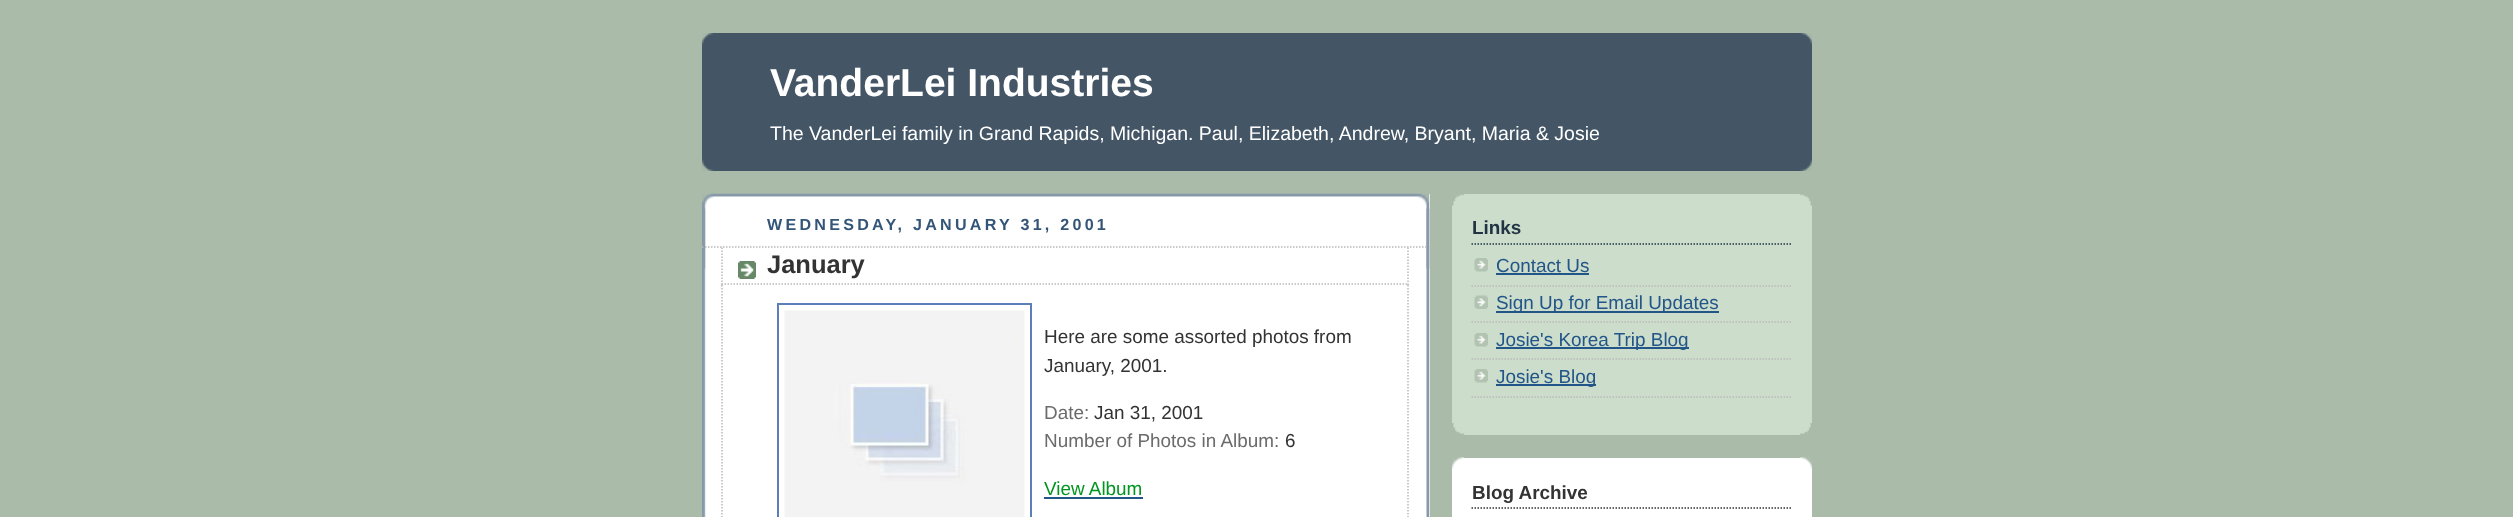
<!DOCTYPE html>
<meta charset="utf-8">
<style>body { margin: 0 } canvas { display: block }</style>
<canvas id="canvas" width="2513" height="517"></canvas>
<script type="module">
  const canvas = document.getElementById("canvas");
  const g = canvas.getContext("2d");
  g.miterLimit = 4;
  g.fontKerning = "normal";
  function drawText(s, x, y, [font, color]) {
    g.font = font;
    g.fillStyle = color;
    g.fillText(s, x, y);
  }
  function fillBox(x, y, w, h, color) {
    g.fillStyle = color;
    g.fillRect(x, y, w, h);
  }
  async function drawPicture(src, x, y, w, h) {
    const img = new Image();
    img.src = src;
    await img.decode();
    g.drawImage(img, x, y, w, h);
  }

  const s1 = ["bold 39px Liberation Sans", "#FFFFFF"];
  const s2 = ["19.5px Liberation Sans", "#FFFFFF"];
  const s3 = ["bold 16.1px Liberation Sans", "#335577"];
  const s4 = ["bold 25.5px Liberation Sans", "#333333"];
  const s5 = ["18.9px Liberation Sans", "#333333"];
  const s6 = ["18.9px Liberation Sans", "#6B6B6B"];
  const s7 = ["18.9px Liberation Sans", "#009620"];
  const s8 = ["bold 18.9px Liberation Sans", "#223344"];
  const s9 = ["18.9px Liberation Sans", "#225588"];
  const s10 = ["bold 18.9px Liberation Sans", "#333333"];

  fillBox(0, 0, 2513, 517, "#AABBAA");
  fillBox(702, 33, 1110, 138, "#445566");
  await drawPicture("pic1.png", 702, 33, 1110, 12);
  await drawPicture("pic2.png", 702, 159, 1110, 12);
  drawText("VanderLei Industries", 770, 96, s1);
  drawText("The VanderLei family in Grand Rapids, Michigan. Paul, Elizabeth, Andrew, Bryant, Maria & Josie", 770, 140, s2);
  fillBox(704, 194, 726, 323, "#FFFFFF");
  await drawPicture("pic3.png", 702, 193, 728, 76);
  await drawPicture("pic4.png", 702, 208, 728, 309);
  g.letterSpacing = "3.25px";
  drawText("WEDNESDAY, JANUARY 31, 2001", 767, 230, s3);
  g.beginPath();
  g.moveTo(702, 247);
  g.lineTo(1428, 247);
  g.strokeStyle = "#BBBBBB";
  g.lineWidth = 1.5;
  g.setLineDash([1.5, 1.5]);
  g.stroke();
  await drawPicture("pic5.png", 738, 261, 18, 18);
  g.beginPath();
  g.moveTo(1408, 247.5);
  g.lineTo(1408, 285);
  g.stroke();
  g.beginPath();
  g.moveTo(721.5, 284);
  g.lineTo(1408.5, 284);
  g.stroke();
  g.beginPath();
  g.moveTo(722, 247.5);
  g.lineTo(722, 285);
  g.stroke();
  g.letterSpacing = "0px";
  drawText("January", 767, 273, s4);
  g.beginPath();
  g.moveTo(1408, 285);
  g.lineTo(1408, 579);
  g.stroke();
  g.beginPath();
  g.moveTo(722, 285);
  g.lineTo(722, 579);
  g.stroke();
  g.strokeStyle = "#5C7FB9";
  g.lineWidth = 2;
  g.setLineDash([]);
  g.strokeRect(778, 304, 253, 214);
  await drawPicture("pic6.png", 784, 310, 241, 207);
  drawText("Here are some assorted photos from", 1044, 343, s5);
  drawText("January, 2001.", 1044, 372, s5);
  drawText("Date:", 1044, 419, s6);
  drawText("Jan 31, 2001", 1094, 419, s5);
  drawText("Number of Photos in Album:", 1044, 447, s6);
  drawText("6", 1285, 447, s5);
  drawText("View Album", 1044, 495, s7);
  fillBox(1044, 497, 99, 2, "#225588");
  fillBox(1452, 194, 360, 241, "#CCDDCC");
  await drawPicture("pic7.png", 1452, 423, 360, 12);
  await drawPicture("pic8.png", 1452, 194, 360, 12);
  g.beginPath();
  g.moveTo(1471.5, 244);
  g.lineTo(1792.5, 244);
  g.strokeStyle = "#223344";
  g.lineWidth = 1.5;
  g.setLineDash([1.5, 1.5]);
  g.stroke();
  drawText("Links", 1472, 234, s8);
  await drawPicture("pic9.png", 1474, 258, 14, 14);
  g.beginPath();
  g.moveTo(1471.5, 286);
  g.lineTo(1792.5, 286);
  g.strokeStyle = "#BBBBBB";
  g.stroke();
  drawText("Contact Us", 1496, 272, s9);
  fillBox(1496, 273, 93, 2, "#225588");
  await drawPicture("pic10.png", 1474, 295, 14, 14);
  g.beginPath();
  g.moveTo(1471.5, 322);
  g.lineTo(1792.5, 322);
  g.stroke();
  fillBox(1496, 311, 223, 2, "#225588");
  drawText("Sign Up for Email Updates", 1496, 309, s9);
  await drawPicture("pic9.png", 1474, 333, 14, 14);
  g.beginPath();
  g.moveTo(1471.5, 359);
  g.lineTo(1792.5, 359);
  g.stroke();
  fillBox(1496, 347, 193, 2, "#225588");
  drawText("Josie's Korea Trip Blog", 1496, 346, s9);
  await drawPicture("pic9.png", 1474, 369, 14, 14);
  g.beginPath();
  g.moveTo(1471.5, 397);
  g.lineTo(1792.5, 397);
  g.stroke();
  fillBox(1496, 384, 100, 2, "#225588");
  drawText("Josie's Blog", 1496, 383, s9);
  fillBox(1452, 458, 360, 59, "#FFFFFF");
  await drawPicture("pic11.png", 1452, 457, 360, 12);
  g.beginPath();
  g.moveTo(1471.5, 508);
  g.lineTo(1792.5, 508);
  g.strokeStyle = "#333333";
  g.stroke();
  drawText("Blog Archive", 1472, 499, s10);
</script>
